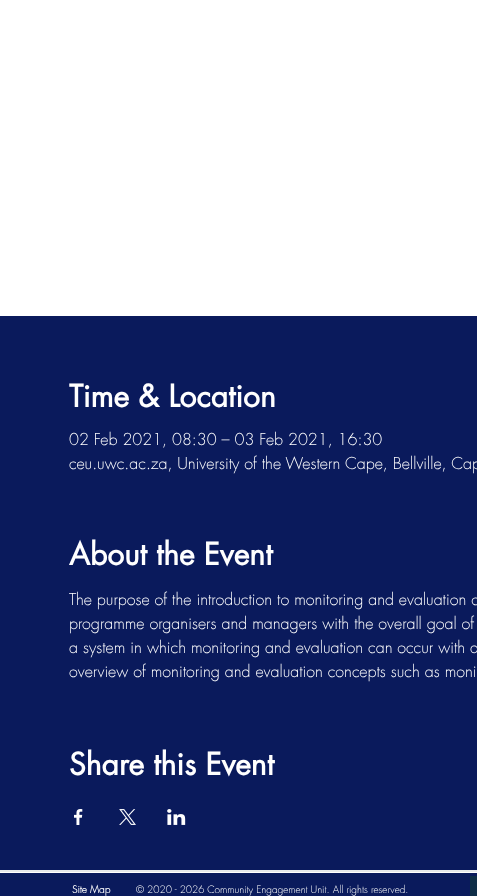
<!DOCTYPE html>
<meta charset="utf-8">
<style>body { margin: 0 } canvas { display: block }</style>
<canvas id="canvas" width="477" height="896"></canvas>
<script type="module">
  const canvas = document.getElementById("canvas");
  const g = canvas.getContext("2d");
  g.miterLimit = 4;
  g.fontKerning = "normal";
  function drawText(s, x, y, [font, color]) {
    g.font = font;
    g.fillStyle = color;
    g.fillText(s, x, y);
  }
  function fillBox(x, y, w, h, color) {
    g.fillStyle = color;
    g.fillRect(x, y, w, h);
  }
  async function drawPicture(src, x, y, w, h) {
    const img = new Image();
    img.src = src;
    await img.decode();
    g.drawImage(img, x, y, w, h);
  }

  const s1 = ["bold 30px futura", "#FFFFFF"];
  const s2 = ["300 16px futura", "#FFFFFF"];
  const s3 = ["bold 10px 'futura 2'", "#FFFFFF"];
  const s4 = ["300 10px futura", "#FFFFFF"];

  fillBox(0, 0, 477, 896, "#E6E9EB");
  fillBox(0, 0, 477, 316, "#FFFFFF");
  fillBox(0, 316, 477, 554, "#0A1A5C");
  drawText("Time & Location", 69, 407, s1);
  drawText("02 Feb 2021, 08:30 – 03 Feb 2021, 16:30", 69, 445, s2);
  drawText("ceu.uwc.ac.za, University of the Western Cape, Bellville, Cap", 69, 469, s2);
  drawText("About the Event", 69, 565, s1);
  drawText("The purpose of the introduction to monitoring and evaluation c", 69, 605, s2);
  drawText("programme organisers and managers with the overall goal of", 69, 629, s2);
  drawText("a system in which monitoring and evaluation can occur with a", 69, 653, s2);
  drawText("overview of monitoring and evaluation concepts such as moni", 69, 677, s2);
  drawText("Share this Event", 69, 775, s1);
  await drawPicture("pic1.png", 74, 809, 9, 16);
  await drawPicture("pic2.png", 119, 809, 17, 16);
  await drawPicture("pic3.png", 167, 809, 19, 16);
  fillBox(0, 873, 477, 23, "#0A1A5C");
  fillBox(0, 872, 477, 1, "#FFFFFF");
  drawText("Site Map", 72, 893, s3);
  drawText("© 2020 - 2026 Community Engagement Unit. All rights reserved.", 136, 893, s4);
  fillBox(470, 876, 7, 20, "#0E2E47");
</script>
